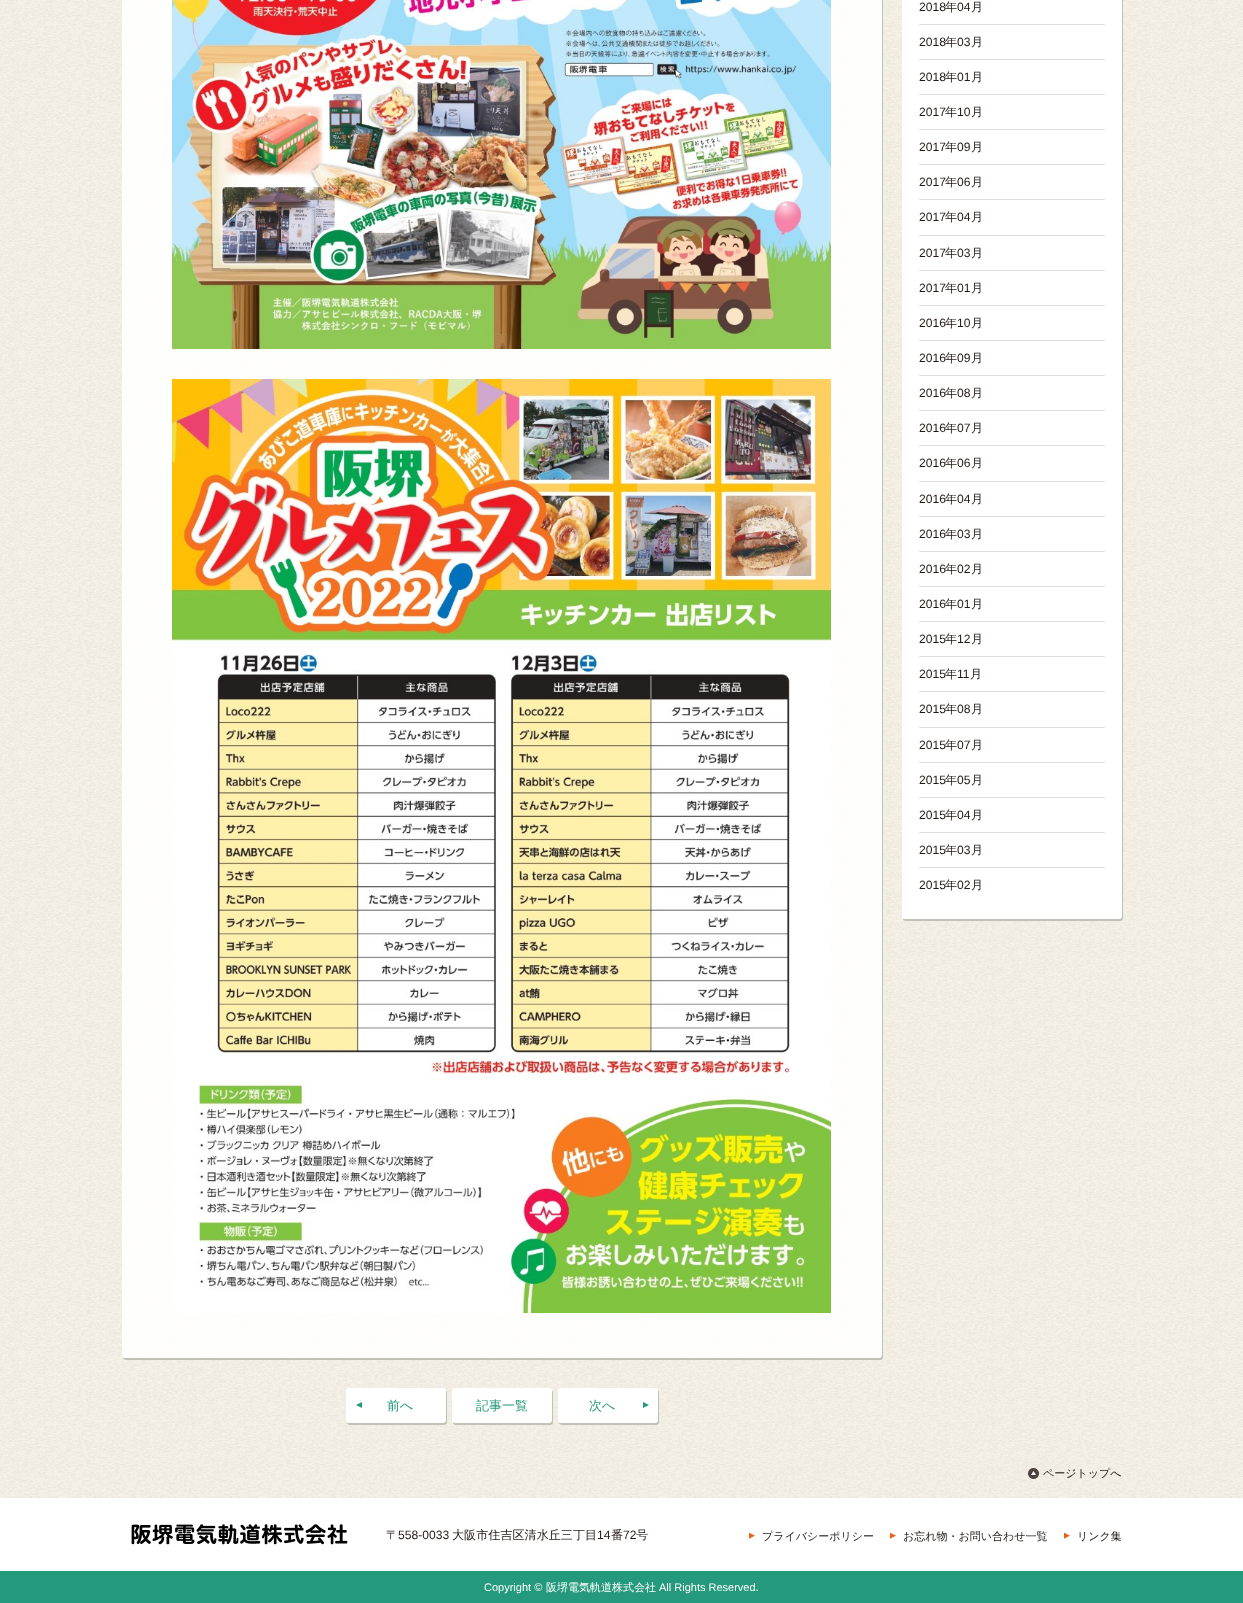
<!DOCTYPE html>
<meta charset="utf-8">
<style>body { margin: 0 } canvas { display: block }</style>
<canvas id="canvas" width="1243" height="1603"></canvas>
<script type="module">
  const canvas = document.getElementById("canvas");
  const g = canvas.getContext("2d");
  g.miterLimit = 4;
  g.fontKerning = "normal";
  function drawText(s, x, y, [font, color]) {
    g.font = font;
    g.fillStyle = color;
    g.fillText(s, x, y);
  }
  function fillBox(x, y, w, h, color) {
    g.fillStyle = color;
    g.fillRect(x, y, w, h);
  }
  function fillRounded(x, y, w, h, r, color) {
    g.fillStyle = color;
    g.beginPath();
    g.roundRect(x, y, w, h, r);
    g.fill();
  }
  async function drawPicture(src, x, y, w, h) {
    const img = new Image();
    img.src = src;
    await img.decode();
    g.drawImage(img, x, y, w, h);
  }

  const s1 = ["12.1px Liberation Sans", "#221815"];
  const s2 = ["500 12.1px WenQuanYi Zen Hei", "#221815"];
  const s3 = ["500 13px WenQuanYi Zen Hei", "#25997C"];
  const s4 = ["500 11px WenQuanYi Zen Hei", "#221815"];
  const s5 = ["11px Liberation Sans", "#FFFFFF"];
  const s6 = ["500 11px WenQuanYi Zen Hei", "#FFFFFF"];

  fillBox(0, 0, 1243, 1603, "#FFFFFF");
  await drawPicture("pic1.png", 0, 0, 1243, 1498);
  g.fillStyle = "#C1C1B7";
  g.filter = "blur(0.5px)";
  g.beginPath();
  g.roundRect(903, -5, 220, 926, 3);
  g.fill();
  g.filter = "none";
  fillRounded(902, -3, 220, 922, 3, "#FFFFFF");
  drawText("2018", 919, 11, s1);
  drawText("年", 945, 11, s2);
  drawText("04", 957, 11, s1);
  drawText("月", 971, 11, s2);
  fillBox(919, 24, 186, 1, "#DFDEDE");
  drawText("2018", 919, 46, s1);
  drawText("年", 945, 46, s2);
  drawText("03", 957, 46, s1);
  drawText("月", 971, 46, s2);
  fillBox(919, 59, 186, 1, "#DFDEDE");
  drawText("2018", 919, 81, s1);
  drawText("年", 945, 81, s2);
  drawText("01", 957, 81, s1);
  drawText("月", 971, 81, s2);
  fillBox(919, 94, 186, 1, "#DFDEDE");
  drawText("2017", 919, 116, s1);
  drawText("年", 945, 116, s2);
  drawText("10", 957, 116, s1);
  drawText("月", 971, 116, s2);
  fillBox(919, 129, 186, 1, "#DFDEDE");
  drawText("2017", 919, 151, s1);
  drawText("年", 945, 151, s2);
  drawText("09", 957, 151, s1);
  drawText("月", 971, 151, s2);
  fillBox(919, 164, 186, 1, "#DFDEDE");
  drawText("2017", 919, 186, s1);
  drawText("年", 945, 186, s2);
  drawText("06", 957, 186, s1);
  drawText("月", 971, 186, s2);
  fillBox(919, 199, 186, 1, "#DFDEDE");
  drawText("2017", 919, 221, s1);
  drawText("年", 945, 221, s2);
  drawText("04", 957, 221, s1);
  drawText("月", 971, 221, s2);
  fillBox(919, 235, 186, 1, "#DFDEDE");
  drawText("2017", 919, 257, s1);
  drawText("年", 945, 257, s2);
  drawText("03", 957, 257, s1);
  drawText("月", 971, 257, s2);
  fillBox(919, 270, 186, 1, "#DFDEDE");
  drawText("2017", 919, 292, s1);
  drawText("年", 945, 292, s2);
  drawText("01", 957, 292, s1);
  drawText("月", 971, 292, s2);
  fillBox(919, 305, 186, 1, "#DFDEDE");
  drawText("2016", 919, 327, s1);
  drawText("年", 945, 327, s2);
  drawText("10", 957, 327, s1);
  drawText("月", 971, 327, s2);
  fillBox(919, 340, 186, 1, "#DFDEDE");
  drawText("2016", 919, 362, s1);
  drawText("年", 945, 362, s2);
  drawText("09", 957, 362, s1);
  drawText("月", 971, 362, s2);
  fillBox(919, 375, 186, 1, "#DFDEDE");
  drawText("2016", 919, 397, s1);
  drawText("年", 945, 397, s2);
  drawText("08", 957, 397, s1);
  drawText("月", 971, 397, s2);
  fillBox(919, 410, 186, 1, "#DFDEDE");
  drawText("2016", 919, 432, s1);
  drawText("年", 945, 432, s2);
  drawText("07", 957, 432, s1);
  drawText("月", 971, 432, s2);
  fillBox(919, 445, 186, 1, "#DFDEDE");
  drawText("2016", 919, 467, s1);
  drawText("年", 945, 467, s2);
  drawText("06", 957, 467, s1);
  drawText("月", 971, 467, s2);
  fillBox(919, 481, 186, 1, "#DFDEDE");
  drawText("2016", 919, 503, s1);
  drawText("年", 945, 503, s2);
  drawText("04", 957, 503, s1);
  drawText("月", 971, 503, s2);
  fillBox(919, 516, 186, 1, "#DFDEDE");
  drawText("2016", 919, 538, s1);
  drawText("年", 945, 538, s2);
  drawText("03", 957, 538, s1);
  drawText("月", 971, 538, s2);
  fillBox(919, 551, 186, 1, "#DFDEDE");
  drawText("2016", 919, 573, s1);
  drawText("年", 945, 573, s2);
  drawText("02", 957, 573, s1);
  drawText("月", 971, 573, s2);
  fillBox(919, 586, 186, 1, "#DFDEDE");
  drawText("2016", 919, 608, s1);
  drawText("年", 945, 608, s2);
  drawText("01", 957, 608, s1);
  drawText("月", 971, 608, s2);
  fillBox(919, 621, 186, 1, "#DFDEDE");
  drawText("2015", 919, 643, s1);
  drawText("年", 945, 643, s2);
  drawText("12", 957, 643, s1);
  drawText("月", 971, 643, s2);
  fillBox(919, 656, 186, 1, "#DFDEDE");
  drawText("2015", 919, 678, s1);
  drawText("年", 945, 678, s2);
  drawText("11", 957, 678, s1);
  drawText("月", 970, 678, s2);
  fillBox(919, 691, 186, 1, "#DFDEDE");
  drawText("2015", 919, 713, s1);
  drawText("年", 945, 713, s2);
  drawText("08", 957, 713, s1);
  drawText("月", 971, 713, s2);
  fillBox(919, 727, 186, 1, "#DFDEDE");
  drawText("2015", 919, 749, s1);
  drawText("年", 945, 749, s2);
  drawText("07", 957, 749, s1);
  drawText("月", 971, 749, s2);
  fillBox(919, 762, 186, 1, "#DFDEDE");
  drawText("2015", 919, 784, s1);
  drawText("年", 945, 784, s2);
  drawText("05", 957, 784, s1);
  drawText("月", 971, 784, s2);
  fillBox(919, 797, 186, 1, "#DFDEDE");
  drawText("2015", 919, 819, s1);
  drawText("年", 945, 819, s2);
  drawText("04", 957, 819, s1);
  drawText("月", 971, 819, s2);
  fillBox(919, 832, 186, 1, "#DFDEDE");
  drawText("2015", 919, 854, s1);
  drawText("年", 945, 854, s2);
  drawText("03", 957, 854, s1);
  drawText("月", 971, 854, s2);
  fillBox(919, 867, 186, 1, "#DFDEDE");
  drawText("2015", 919, 889, s1);
  drawText("年", 945, 889, s2);
  drawText("02", 957, 889, s1);
  drawText("月", 971, 889, s2);
  g.save();
  g.beginPath();
  g.moveTo(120, 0);
  g.lineTo(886, 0);
  g.lineTo(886, 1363);
  g.lineTo(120, 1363);
  g.closePath();
  g.moveTo(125, -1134);
  g.lineTo(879, -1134);
  g.bezierCurveTo(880.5, -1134, 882, -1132.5, 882, -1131);
  g.lineTo(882, 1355);
  g.bezierCurveTo(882, 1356.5, 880.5, 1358, 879, 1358);
  g.lineTo(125, 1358);
  g.bezierCurveTo(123.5, 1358, 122, 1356.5, 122, 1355);
  g.lineTo(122, -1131);
  g.bezierCurveTo(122, -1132.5, 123.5, -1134, 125, -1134);
  g.closePath();
  g.clip("evenodd");
  g.fillStyle = "#C1C1B7";
  g.filter = "blur(0.5px)";
  g.beginPath();
  g.roundRect(123, -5, 760, 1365, 3);
  g.fill();
  g.filter = "none";
  g.restore();
  fillRounded(122, -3, 760, 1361, 3, "rgba(255, 255, 255, 0.9)");
  await drawPicture("pic2.png", 172, 0, 659, 349);
  await drawPicture("pic3.png", 172, 379, 659, 934);
  g.fillStyle = "#C1C1B7";
  g.filter = "blur(0.5px)";
  g.beginPath();
  g.roundRect(347, 1390, 100, 35, 3);
  g.fill();
  g.filter = "none";
  fillRounded(346, 1388, 100, 35, 3, "#FFFFFF");
  await drawPicture("pic4.png", 356, 1402, 6, 6);
  drawText("前へ", 387, 1410, s3);
  g.fillStyle = "#C1C1B7";
  g.filter = "blur(0.5px)";
  g.beginPath();
  g.roundRect(453, 1390, 100, 35, 3);
  g.fill();
  g.filter = "none";
  fillRounded(452, 1388, 100, 35, 3, "#FFFFFF");
  drawText("記事一覧", 476, 1410, s3);
  g.fillStyle = "#C1C1B7";
  g.filter = "blur(0.5px)";
  g.beginPath();
  g.roundRect(559, 1390, 100, 35, 3);
  g.fill();
  g.filter = "none";
  fillRounded(558, 1388, 100, 35, 3, "#FFFFFF");
  await drawPicture("pic5.png", 643, 1402, 6, 6);
  drawText("次へ", 589, 1410, s3);
  await drawPicture("pic6.png", 1028, 1468, 11, 11);
  drawText("ページトップへ", 1043, 1477, s4);
  await drawPicture("pic7.png", 131, 1524, 217, 21);
  drawText("〒", 386, 1539, s2);
  drawText("558-0033", 398, 1539, s1);
  drawText("大阪市住吉区清水丘三丁目", 452, 1539, s2);
  drawText("14", 597, 1539, s1);
  drawText("番", 611, 1539, s2);
  drawText("72", 623, 1539, s1);
  drawText("号", 636, 1539, s2);
  await drawPicture("pic8.png", 749, 1532, 6, 7);
  drawText("プライバシーポリシー", 762, 1540, s4);
  await drawPicture("pic8.png", 890, 1532, 6, 7);
  drawText("お忘れ物・お問い合わせ一覧", 903, 1540, s4);
  await drawPicture("pic8.png", 1064, 1532, 6, 7);
  drawText("リンク集", 1077, 1540, s4);
  fillBox(0, 1571, 1243, 32, "#24997C");
  drawText("Copyright ©", 484, 1591, s5);
  drawText("阪堺電気軌道株式会社", 546, 1591, s6);
  drawText("All Rights Reserved.", 659, 1591, s5);
</script>
